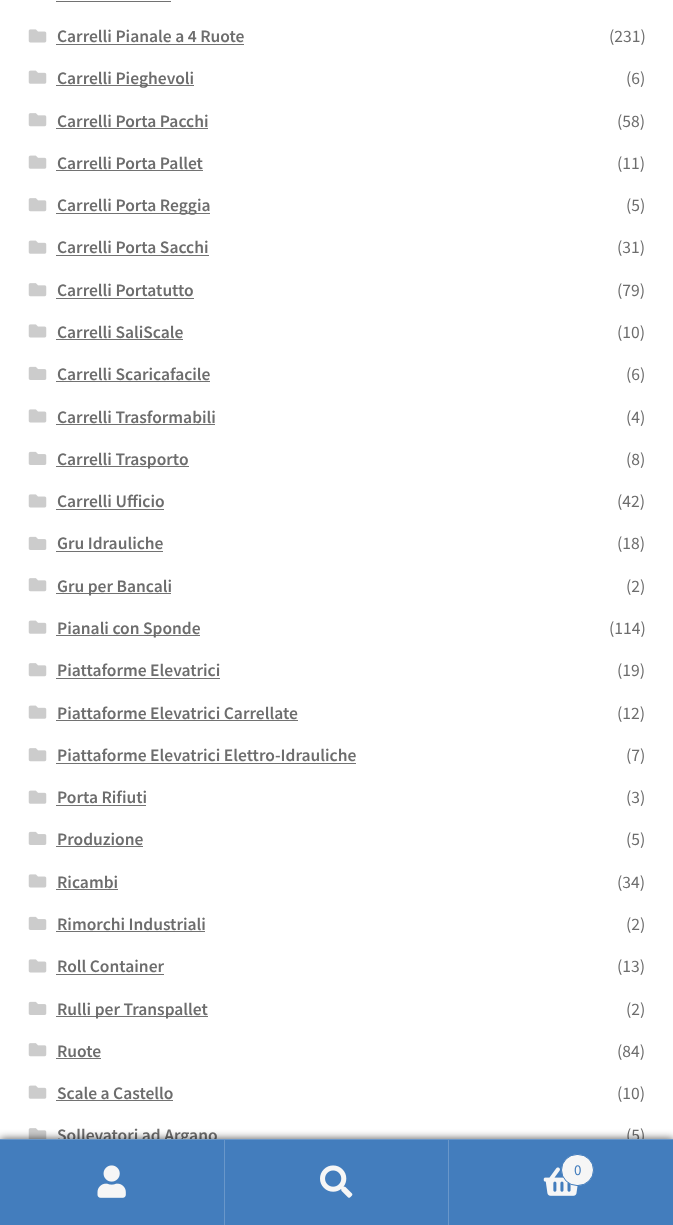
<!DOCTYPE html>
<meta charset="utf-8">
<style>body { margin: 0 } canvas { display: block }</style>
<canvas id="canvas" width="673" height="1225"></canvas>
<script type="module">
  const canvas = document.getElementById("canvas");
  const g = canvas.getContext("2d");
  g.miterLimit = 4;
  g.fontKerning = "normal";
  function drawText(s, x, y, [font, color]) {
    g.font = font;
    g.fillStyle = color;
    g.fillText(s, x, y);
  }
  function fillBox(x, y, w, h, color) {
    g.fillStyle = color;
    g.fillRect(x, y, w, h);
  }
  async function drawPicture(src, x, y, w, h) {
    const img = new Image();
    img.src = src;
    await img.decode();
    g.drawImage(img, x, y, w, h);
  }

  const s1 = ["600 17.5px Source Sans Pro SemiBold", "#6D6D6D"];
  const s2 = ["17.5px Source Sans Pro", "#6D6D6D"];
  const s3 = ["15px Source Sans Pro", "#437DBD"];

  fillBox(0, 0, 673, 1225, "#FFFFFF");
  fillBox(56, 1, 115, 1, "#727272");
  await drawPicture("pic1.png", 28, 29, 19, 14);
  drawText("Carrelli Pianale a 4 Ruote", 57, 42, s1);
  fillBox(56, 44, 188, 1, "#727272");
  drawText("(231)", 609, 42, s2);
  await drawPicture("pic2.png", 28, 70, 19, 14);
  fillBox(56, 85, 138, 1, "#727272");
  drawText("Carrelli Pieghevoli", 57, 84, s1);
  drawText("(6)", 626, 84, s2);
  await drawPicture("pic3.png", 28, 113, 19, 14);
  drawText("Carrelli Porta Pacchi", 57, 127, s1);
  fillBox(56, 128, 152, 1, "#727272");
  drawText("(58)", 617, 127, s2);
  await drawPicture("pic2.png", 28, 155, 19, 14);
  drawText("Carrelli Porta Pallet", 57, 169, s1);
  fillBox(56, 170, 147, 1, "#727272");
  drawText("(11)", 617, 169, s2);
  await drawPicture("pic3.png", 28, 198, 19, 14);
  fillBox(56, 213, 154, 1, "#727272");
  drawText("Carrelli Porta Reggia", 57, 211, s1);
  drawText("(5)", 626, 211, s2);
  await drawPicture("pic2.png", 28, 240, 19, 14);
  drawText("Carrelli Porta Sacchi", 57, 253, s1);
  fillBox(56, 255, 153, 1, "#727272");
  drawText("(31)", 617, 253, s2);
  await drawPicture("pic3.png", 28, 283, 19, 14);
  drawText("Carrelli Portatutto", 57, 296, s1);
  fillBox(56, 298, 138, 1, "#727272");
  drawText("(79)", 617, 296, s2);
  await drawPicture("pic1.png", 28, 324, 19, 14);
  drawText("Carrelli SaliScale", 57, 338, s1);
  fillBox(56, 339, 127, 1, "#727272");
  drawText("(10)", 617, 338, s2);
  await drawPicture("pic4.png", 28, 366, 19, 14);
  drawText("Carrelli Scaricafacile", 57, 380, s1);
  fillBox(56, 381, 154, 1, "#727272");
  drawText("(6)", 626, 380, s2);
  await drawPicture("pic1.png", 28, 409, 19, 14);
  drawText("Carrelli Trasformabili", 57, 423, s1);
  fillBox(56, 424, 159, 1, "#727272");
  drawText("(4)", 626, 423, s2);
  await drawPicture("pic4.png", 28, 451, 19, 14);
  fillBox(56, 466, 133, 1, "#727272");
  drawText("Carrelli Trasporto", 57, 465, s1);
  drawText("(8)", 626, 465, s2);
  await drawPicture("pic1.png", 28, 494, 19, 14);
  drawText("Carrelli Ufficio", 57, 507, s1);
  fillBox(56, 509, 108, 1, "#727272");
  drawText("(42)", 617, 507, s2);
  await drawPicture("pic4.png", 28, 536, 19, 14);
  drawText("Gru Idrauliche", 57, 549, s1);
  fillBox(56, 551, 107, 1, "#727272");
  drawText("(18)", 617, 549, s2);
  await drawPicture("pic3.png", 28, 578, 19, 14);
  fillBox(56, 593, 115, 1, "#727272");
  drawText("Gru per Bancali", 57, 592, s1);
  drawText("(2)", 626, 592, s2);
  await drawPicture("pic2.png", 28, 620, 19, 14);
  fillBox(56, 635, 144, 1, "#727272");
  drawText("Pianali con Sponde", 57, 634, s1);
  drawText("(114)", 609, 634, s2);
  await drawPicture("pic3.png", 28, 663, 19, 14);
  drawText("Piattaforme Elevatrici", 57, 676, s1);
  fillBox(56, 678, 164, 1, "#727272");
  drawText("(19)", 617, 676, s2);
  await drawPicture("pic2.png", 28, 705, 19, 14);
  drawText("Piattaforme Elevatrici Carrellate", 57, 719, s1);
  fillBox(56, 720, 242, 1, "#727272");
  drawText("(12)", 617, 719, s2);
  await drawPicture("pic3.png", 28, 748, 19, 14);
  drawText("Piattaforme Elevatrici Elettro-Idrauliche", 57, 761, s1);
  fillBox(56, 763, 300, 1, "#727272");
  drawText("(7)", 626, 761, s2);
  await drawPicture("pic2.png", 28, 790, 19, 14);
  drawText("Porta Rifiuti", 57, 803, s1);
  fillBox(56, 805, 90, 1, "#727272");
  drawText("(3)", 626, 803, s2);
  await drawPicture("pic4.png", 28, 831, 19, 14);
  drawText("Produzione", 57, 845, s1);
  fillBox(56, 846, 87, 1, "#727272");
  drawText("(5)", 626, 845, s2);
  await drawPicture("pic1.png", 28, 874, 19, 14);
  drawText("Ricambi", 57, 888, s1);
  fillBox(56, 889, 62, 1, "#727272");
  drawText("(34)", 617, 888, s2);
  await drawPicture("pic4.png", 28, 916, 19, 14);
  drawText("Rimorchi Industriali", 57, 930, s1);
  fillBox(56, 931, 149, 1, "#727272");
  drawText("(2)", 626, 930, s2);
  await drawPicture("pic1.png", 28, 959, 19, 14);
  drawText("Roll Container", 57, 972, s1);
  fillBox(56, 974, 108, 1, "#727272");
  drawText("(13)", 617, 972, s2);
  await drawPicture("pic4.png", 28, 1001, 19, 14);
  fillBox(56, 1016, 152, 1, "#727272");
  drawText("Rulli per Transpallet", 57, 1015, s1);
  drawText("(2)", 626, 1015, s2);
  await drawPicture("pic3.png", 28, 1043, 19, 14);
  drawText("Ruote", 57, 1057, s1);
  fillBox(56, 1058, 45, 1, "#727272");
  drawText("(84)", 617, 1057, s2);
  await drawPicture("pic2.png", 28, 1085, 19, 14);
  drawText("Scale a Castello", 57, 1099, s1);
  fillBox(56, 1100, 117, 1, "#727272");
  drawText("(10)", 617, 1099, s2);
  await drawPicture("pic5.png", 28, 1128, 19, 11);
  drawText("Sollevatori ad Argano", 57, 1141, s1);
  drawText("(5)", 626, 1141, s2);
  g.fillStyle = "rgba(0, 0, 0, 0.7)";
  g.filter = "blur(4px)";
  g.beginPath();
  g.rect(0, 1139, 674, 86);
  g.fill();
  g.filter = "none";
  fillBox(0, 1139, 673, 1, "#6997CA");
  fillBox(0, 1140, 224, 85, "#437DBD");
  fillBox(224, 1140, 1, 85, "#6997CA");
  await drawPicture("pic6.png", 97, 1165, 29, 33);
  fillBox(225, 1140, 223, 85, "#437DBD");
  fillBox(448, 1140, 1, 85, "#6997CA");
  await drawPicture("pic7.png", 320, 1165, 33, 33);
  fillBox(449, 1140, 224, 85, "#437DBD");
  await drawPicture("pic8.png", 543, 1167, 35, 29);
  g.fillStyle = "#F6F6F6";
  g.beginPath();
  g.roundRect(561.5, 1154.5, 32, 31, 15.5);
  g.fill();
  g.strokeStyle = "#437DBD";
  g.stroke();
  drawText("0", 574, 1175, s3);
</script>
